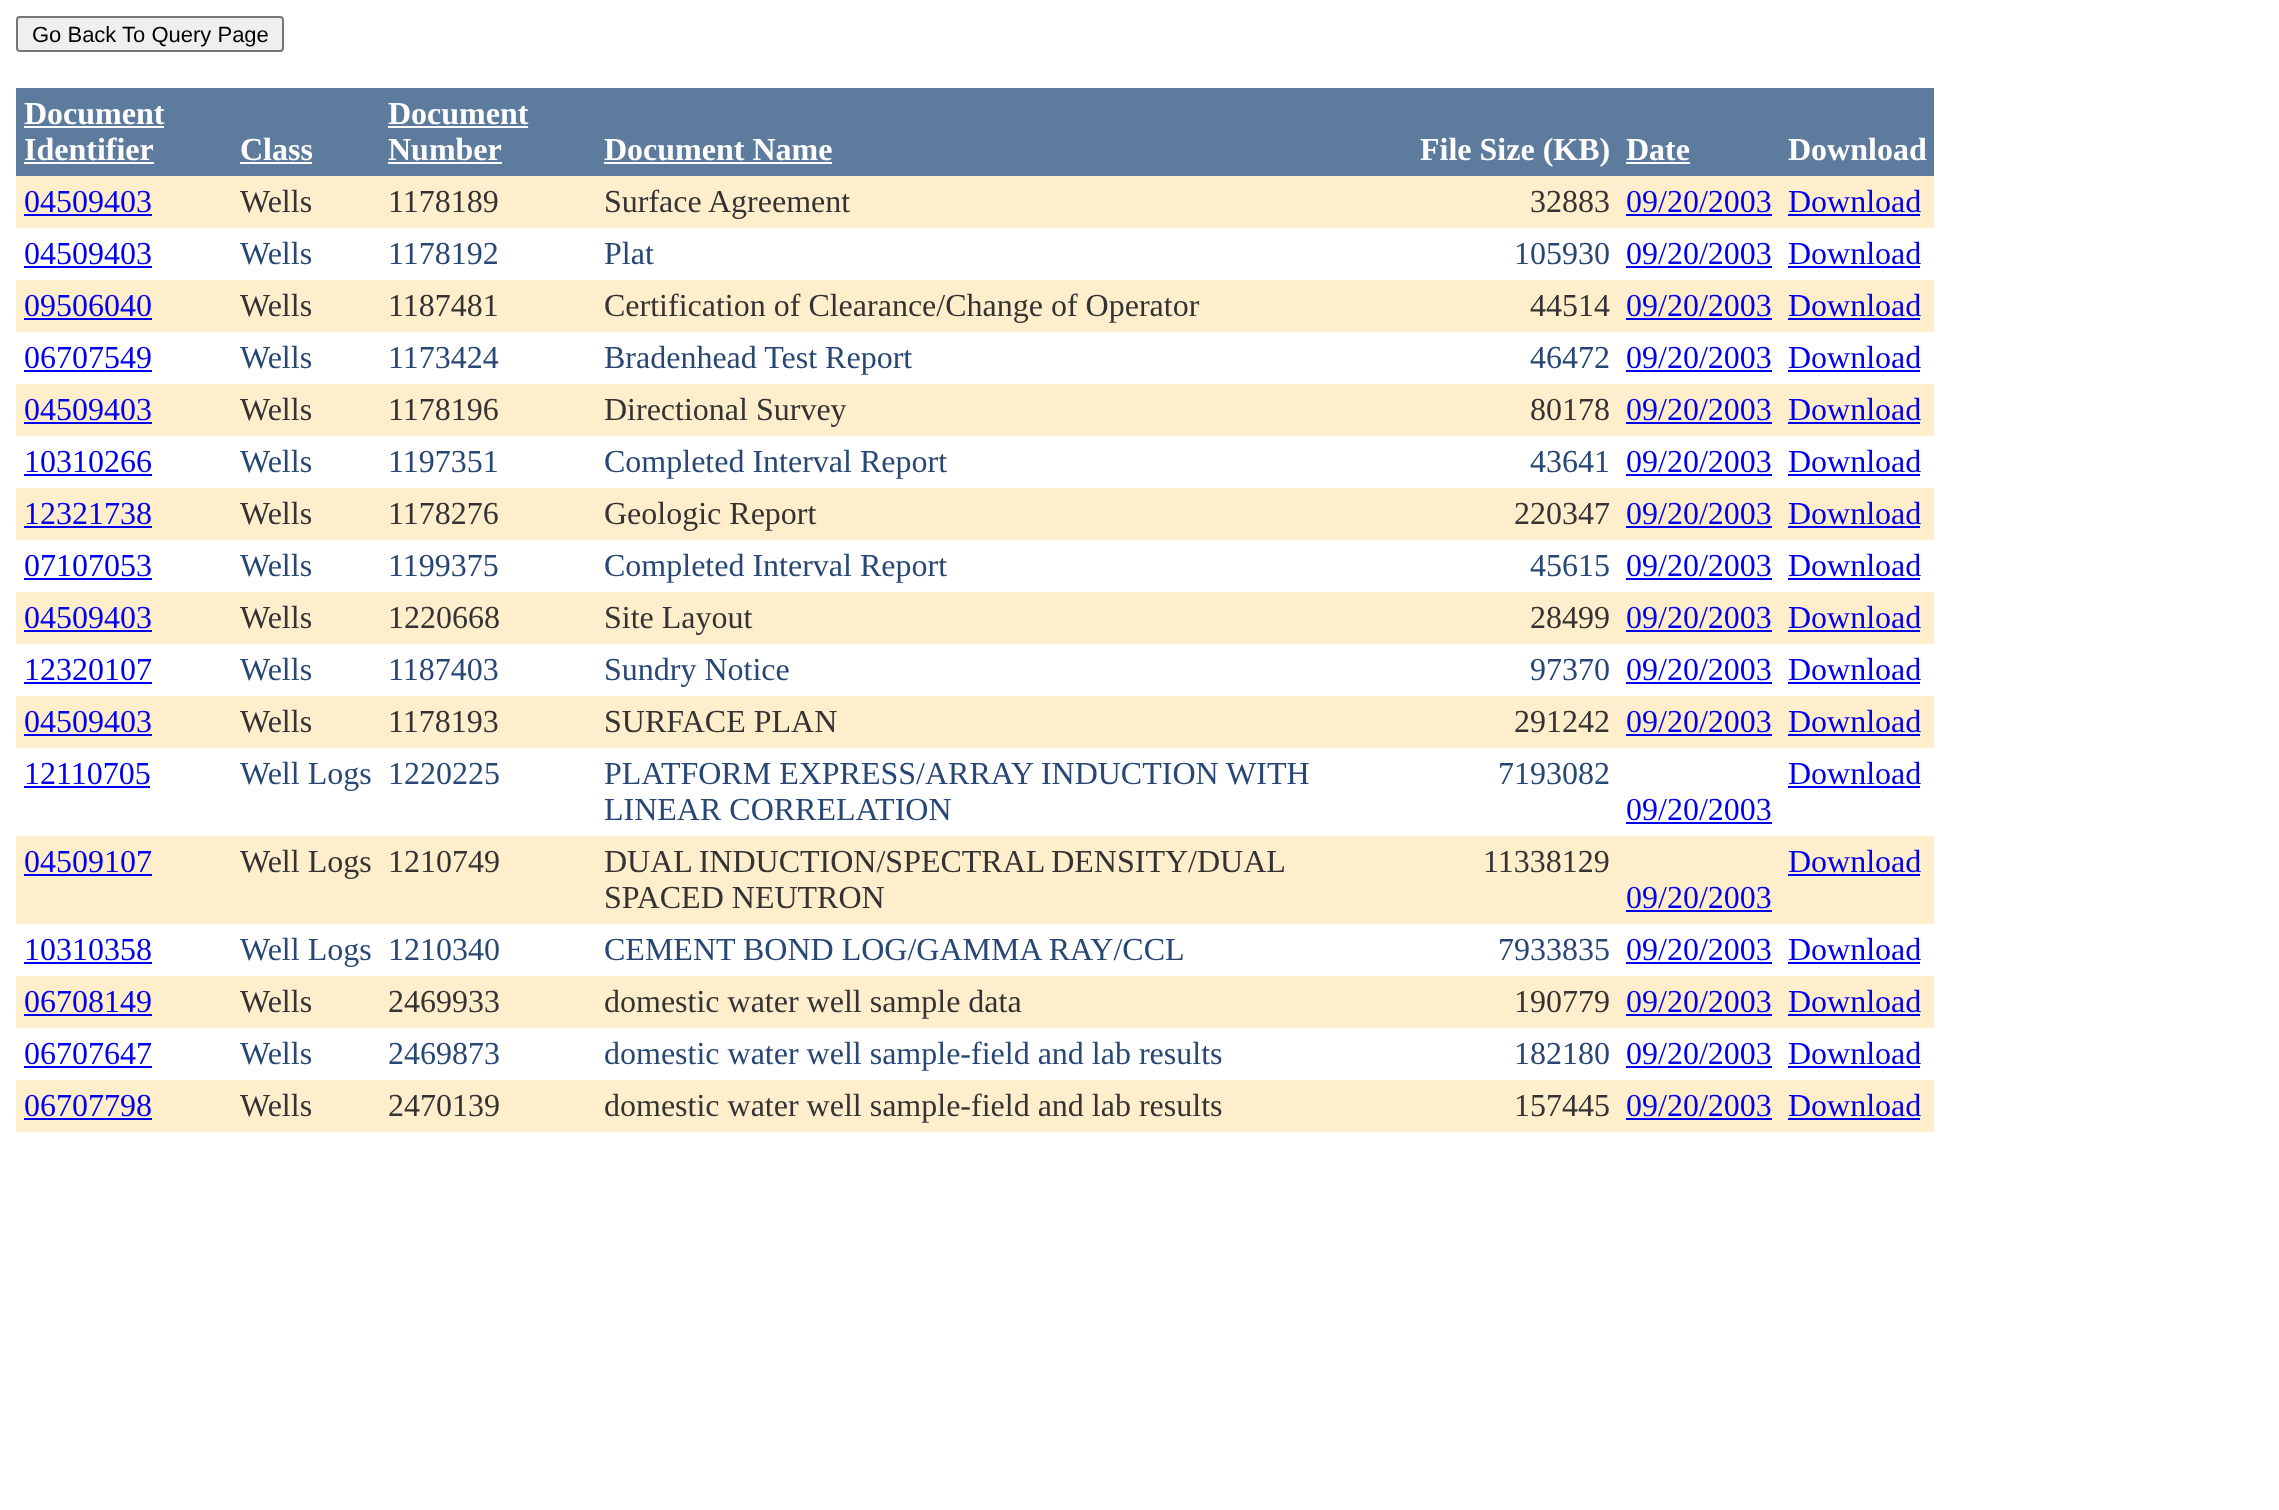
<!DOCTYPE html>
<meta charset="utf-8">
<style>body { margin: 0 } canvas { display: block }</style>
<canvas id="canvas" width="2279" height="1510"></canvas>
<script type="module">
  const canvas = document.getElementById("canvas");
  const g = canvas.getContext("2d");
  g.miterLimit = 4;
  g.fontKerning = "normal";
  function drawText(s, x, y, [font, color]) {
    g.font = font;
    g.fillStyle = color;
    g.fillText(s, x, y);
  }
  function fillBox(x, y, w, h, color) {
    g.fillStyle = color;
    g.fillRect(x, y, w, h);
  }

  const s1 = ["22px Liberation Sans", "#000000"];
  const s2 = ["bold 32px Liberation Serif", "#FFFFFF"];
  const s3 = ["32px Liberation Serif", "#0000EE"];
  const s4 = ["32px Liberation Serif", "#333333"];
  const s5 = ["32px Liberation Serif", "#284775"];

  fillBox(0, 0, 2279, 1510, "#FFFFFF");
  g.fillStyle = "#EFEFEF";
  g.beginPath();
  g.roundRect(17, 17, 266, 34, 3);
  g.fill();
  g.strokeStyle = "#767676";
  g.lineWidth = 2;
  g.stroke();
  drawText("Go Back To Query Page", 32, 42, s1);
  fillBox(16, 88, 1918, 88, "#5D7B9D");
  drawText("Document", 24, 124, s2);
  fillBox(24, 126, 140, 2, "#FFFFFF");
  drawText("Identifier", 24, 160, s2);
  fillBox(24, 162, 130, 2, "#FFFFFF");
  drawText("Class", 240, 160, s2);
  fillBox(240, 162, 72, 2, "#FFFFFF");
  drawText("Document", 388, 124, s2);
  fillBox(388, 126, 140, 2, "#FFFFFF");
  drawText("Number", 388, 160, s2);
  fillBox(388, 162, 114, 2, "#FFFFFF");
  drawText("Document Name", 604, 160, s2);
  fillBox(604, 162, 228, 2, "#FFFFFF");
  drawText("File Size (KB)", 1420, 160, s2);
  drawText("Date", 1626, 160, s2);
  fillBox(1626, 162, 64, 2, "#FFFFFF");
  drawText("Download", 1788, 160, s2);
  fillBox(16, 176, 1918, 52, "#FFEECC");
  drawText("04509403", 24, 212, s3);
  fillBox(24, 214, 128, 2, "#0000EE");
  drawText("Wells", 240, 212, s4);
  drawText("1178189", 388, 212, s4);
  drawText("Surface Agreement", 604, 212, s4);
  drawText("32883", 1530, 212, s4);
  drawText("09/20/2003", 1626, 212, s3);
  fillBox(1626, 214, 146, 2, "#0000EE");
  drawText("Download", 1788, 212, s3);
  fillBox(1788, 214, 132, 2, "#0000EE");
  drawText("04509403", 24, 264, s3);
  fillBox(24, 266, 128, 2, "#0000EE");
  drawText("Wells", 240, 264, s5);
  drawText("1178192", 388, 264, s5);
  drawText("Plat", 604, 264, s5);
  drawText("105930", 1514, 264, s5);
  drawText("09/20/2003", 1626, 264, s3);
  fillBox(1626, 266, 146, 2, "#0000EE");
  drawText("Download", 1788, 264, s3);
  fillBox(1788, 266, 132, 2, "#0000EE");
  fillBox(16, 280, 1918, 52, "#FFEECC");
  drawText("09506040", 24, 316, s3);
  fillBox(24, 318, 128, 2, "#0000EE");
  drawText("Wells", 240, 316, s4);
  drawText("1187481", 388, 316, s4);
  drawText("Certification of Clearance/Change of Operator", 604, 316, s4);
  drawText("44514", 1530, 316, s4);
  drawText("09/20/2003", 1626, 316, s3);
  fillBox(1626, 318, 146, 2, "#0000EE");
  drawText("Download", 1788, 316, s3);
  fillBox(1788, 318, 132, 2, "#0000EE");
  drawText("06707549", 24, 368, s3);
  fillBox(24, 370, 128, 2, "#0000EE");
  drawText("Wells", 240, 368, s5);
  drawText("1173424", 388, 368, s5);
  drawText("Bradenhead Test Report", 604, 368, s5);
  drawText("46472", 1530, 368, s5);
  drawText("09/20/2003", 1626, 368, s3);
  fillBox(1626, 370, 146, 2, "#0000EE");
  drawText("Download", 1788, 368, s3);
  fillBox(1788, 370, 132, 2, "#0000EE");
  fillBox(16, 384, 1918, 52, "#FFEECC");
  drawText("04509403", 24, 420, s3);
  fillBox(24, 422, 128, 2, "#0000EE");
  drawText("Wells", 240, 420, s4);
  drawText("1178196", 388, 420, s4);
  drawText("Directional Survey", 604, 420, s4);
  drawText("80178", 1530, 420, s4);
  drawText("09/20/2003", 1626, 420, s3);
  fillBox(1626, 422, 146, 2, "#0000EE");
  drawText("Download", 1788, 420, s3);
  fillBox(1788, 422, 132, 2, "#0000EE");
  drawText("10310266", 24, 472, s3);
  fillBox(24, 474, 128, 2, "#0000EE");
  drawText("Wells", 240, 472, s5);
  drawText("1197351", 388, 472, s5);
  drawText("Completed Interval Report", 604, 472, s5);
  drawText("43641", 1530, 472, s5);
  drawText("09/20/2003", 1626, 472, s3);
  fillBox(1626, 474, 146, 2, "#0000EE");
  drawText("Download", 1788, 472, s3);
  fillBox(1788, 474, 132, 2, "#0000EE");
  fillBox(16, 488, 1918, 52, "#FFEECC");
  drawText("12321738", 24, 524, s3);
  fillBox(24, 526, 128, 2, "#0000EE");
  drawText("Wells", 240, 524, s4);
  drawText("1178276", 388, 524, s4);
  drawText("Geologic Report", 604, 524, s4);
  drawText("220347", 1514, 524, s4);
  drawText("09/20/2003", 1626, 524, s3);
  fillBox(1626, 526, 146, 2, "#0000EE");
  drawText("Download", 1788, 524, s3);
  fillBox(1788, 526, 132, 2, "#0000EE");
  drawText("07107053", 24, 576, s3);
  fillBox(24, 578, 128, 2, "#0000EE");
  drawText("Wells", 240, 576, s5);
  drawText("1199375", 388, 576, s5);
  drawText("Completed Interval Report", 604, 576, s5);
  drawText("45615", 1530, 576, s5);
  drawText("09/20/2003", 1626, 576, s3);
  fillBox(1626, 578, 146, 2, "#0000EE");
  drawText("Download", 1788, 576, s3);
  fillBox(1788, 578, 132, 2, "#0000EE");
  fillBox(16, 592, 1918, 52, "#FFEECC");
  drawText("04509403", 24, 628, s3);
  fillBox(24, 630, 128, 2, "#0000EE");
  drawText("Wells", 240, 628, s4);
  drawText("1220668", 388, 628, s4);
  drawText("Site Layout", 604, 628, s4);
  drawText("28499", 1530, 628, s4);
  drawText("09/20/2003", 1626, 628, s3);
  fillBox(1626, 630, 146, 2, "#0000EE");
  drawText("Download", 1788, 628, s3);
  fillBox(1788, 630, 132, 2, "#0000EE");
  drawText("12320107", 24, 680, s3);
  fillBox(24, 682, 128, 2, "#0000EE");
  drawText("Wells", 240, 680, s5);
  drawText("1187403", 388, 680, s5);
  drawText("Sundry Notice", 604, 680, s5);
  drawText("97370", 1530, 680, s5);
  drawText("09/20/2003", 1626, 680, s3);
  fillBox(1626, 682, 146, 2, "#0000EE");
  drawText("Download", 1788, 680, s3);
  fillBox(1788, 682, 132, 2, "#0000EE");
  fillBox(16, 696, 1918, 52, "#FFEECC");
  drawText("04509403", 24, 732, s3);
  fillBox(24, 734, 128, 2, "#0000EE");
  drawText("Wells", 240, 732, s4);
  drawText("1178193", 388, 732, s4);
  drawText("SURFACE PLAN", 604, 732, s4);
  drawText("291242", 1514, 732, s4);
  drawText("09/20/2003", 1626, 732, s3);
  fillBox(1626, 734, 146, 2, "#0000EE");
  drawText("Download", 1788, 732, s3);
  fillBox(1788, 734, 132, 2, "#0000EE");
  drawText("12110705", 24, 784, s3);
  fillBox(24, 786, 126, 2, "#0000EE");
  drawText("Well Logs", 240, 784, s5);
  drawText("1220225", 388, 784, s5);
  drawText("PLATFORM EXPRESS/ARRAY INDUCTION WITH", 604, 784, s5);
  drawText("LINEAR CORRELATION", 604, 820, s5);
  drawText("7193082", 1498, 784, s5);
  drawText("Download", 1788, 784, s3);
  fillBox(1788, 786, 132, 2, "#0000EE");
  drawText("09/20/2003", 1626, 820, s3);
  fillBox(1626, 822, 146, 2, "#0000EE");
  fillBox(16, 836, 1918, 88, "#FFEECC");
  drawText("04509107", 24, 872, s3);
  fillBox(24, 874, 128, 2, "#0000EE");
  drawText("Well Logs", 240, 872, s4);
  drawText("1210749", 388, 872, s4);
  g.wordSpacing = "-1px";
  drawText("DUAL INDUCTION/SPECTRAL DENSITY/DUAL", 604, 872, s4);
  g.wordSpacing = "0px";
  drawText("SPACED NEUTRON", 604, 908, s4);
  drawText("11338129", 1483, 872, s4);
  drawText("Download", 1788, 872, s3);
  fillBox(1788, 874, 132, 2, "#0000EE");
  drawText("09/20/2003", 1626, 908, s3);
  fillBox(1626, 910, 146, 2, "#0000EE");
  drawText("10310358", 24, 960, s3);
  fillBox(24, 962, 128, 2, "#0000EE");
  drawText("Well Logs", 240, 960, s5);
  drawText("1210340", 388, 960, s5);
  drawText("CEMENT BOND LOG/GAMMA RAY/CCL", 604, 960, s5);
  drawText("7933835", 1498, 960, s5);
  drawText("09/20/2003", 1626, 960, s3);
  fillBox(1626, 962, 146, 2, "#0000EE");
  drawText("Download", 1788, 960, s3);
  fillBox(1788, 962, 132, 2, "#0000EE");
  fillBox(16, 976, 1918, 52, "#FFEECC");
  drawText("06708149", 24, 1012, s3);
  fillBox(24, 1014, 128, 2, "#0000EE");
  drawText("Wells", 240, 1012, s4);
  drawText("2469933", 388, 1012, s4);
  drawText("domestic water well sample data", 604, 1012, s4);
  drawText("190779", 1514, 1012, s4);
  drawText("09/20/2003", 1626, 1012, s3);
  fillBox(1626, 1014, 146, 2, "#0000EE");
  drawText("Download", 1788, 1012, s3);
  fillBox(1788, 1014, 132, 2, "#0000EE");
  drawText("06707647", 24, 1064, s3);
  fillBox(24, 1066, 128, 2, "#0000EE");
  drawText("Wells", 240, 1064, s5);
  drawText("2469873", 388, 1064, s5);
  drawText("domestic water well sample-field and lab results", 604, 1064, s5);
  drawText("182180", 1514, 1064, s5);
  drawText("09/20/2003", 1626, 1064, s3);
  fillBox(1626, 1066, 146, 2, "#0000EE");
  drawText("Download", 1788, 1064, s3);
  fillBox(1788, 1066, 132, 2, "#0000EE");
  fillBox(16, 1080, 1918, 52, "#FFEECC");
  drawText("06707798", 24, 1116, s3);
  fillBox(24, 1118, 128, 2, "#0000EE");
  drawText("Wells", 240, 1116, s4);
  drawText("2470139", 388, 1116, s4);
  drawText("domestic water well sample-field and lab results", 604, 1116, s4);
  drawText("157445", 1514, 1116, s4);
  drawText("09/20/2003", 1626, 1116, s3);
  fillBox(1626, 1118, 146, 2, "#0000EE");
  drawText("Download", 1788, 1116, s3);
  fillBox(1788, 1118, 132, 2, "#0000EE");
</script>
